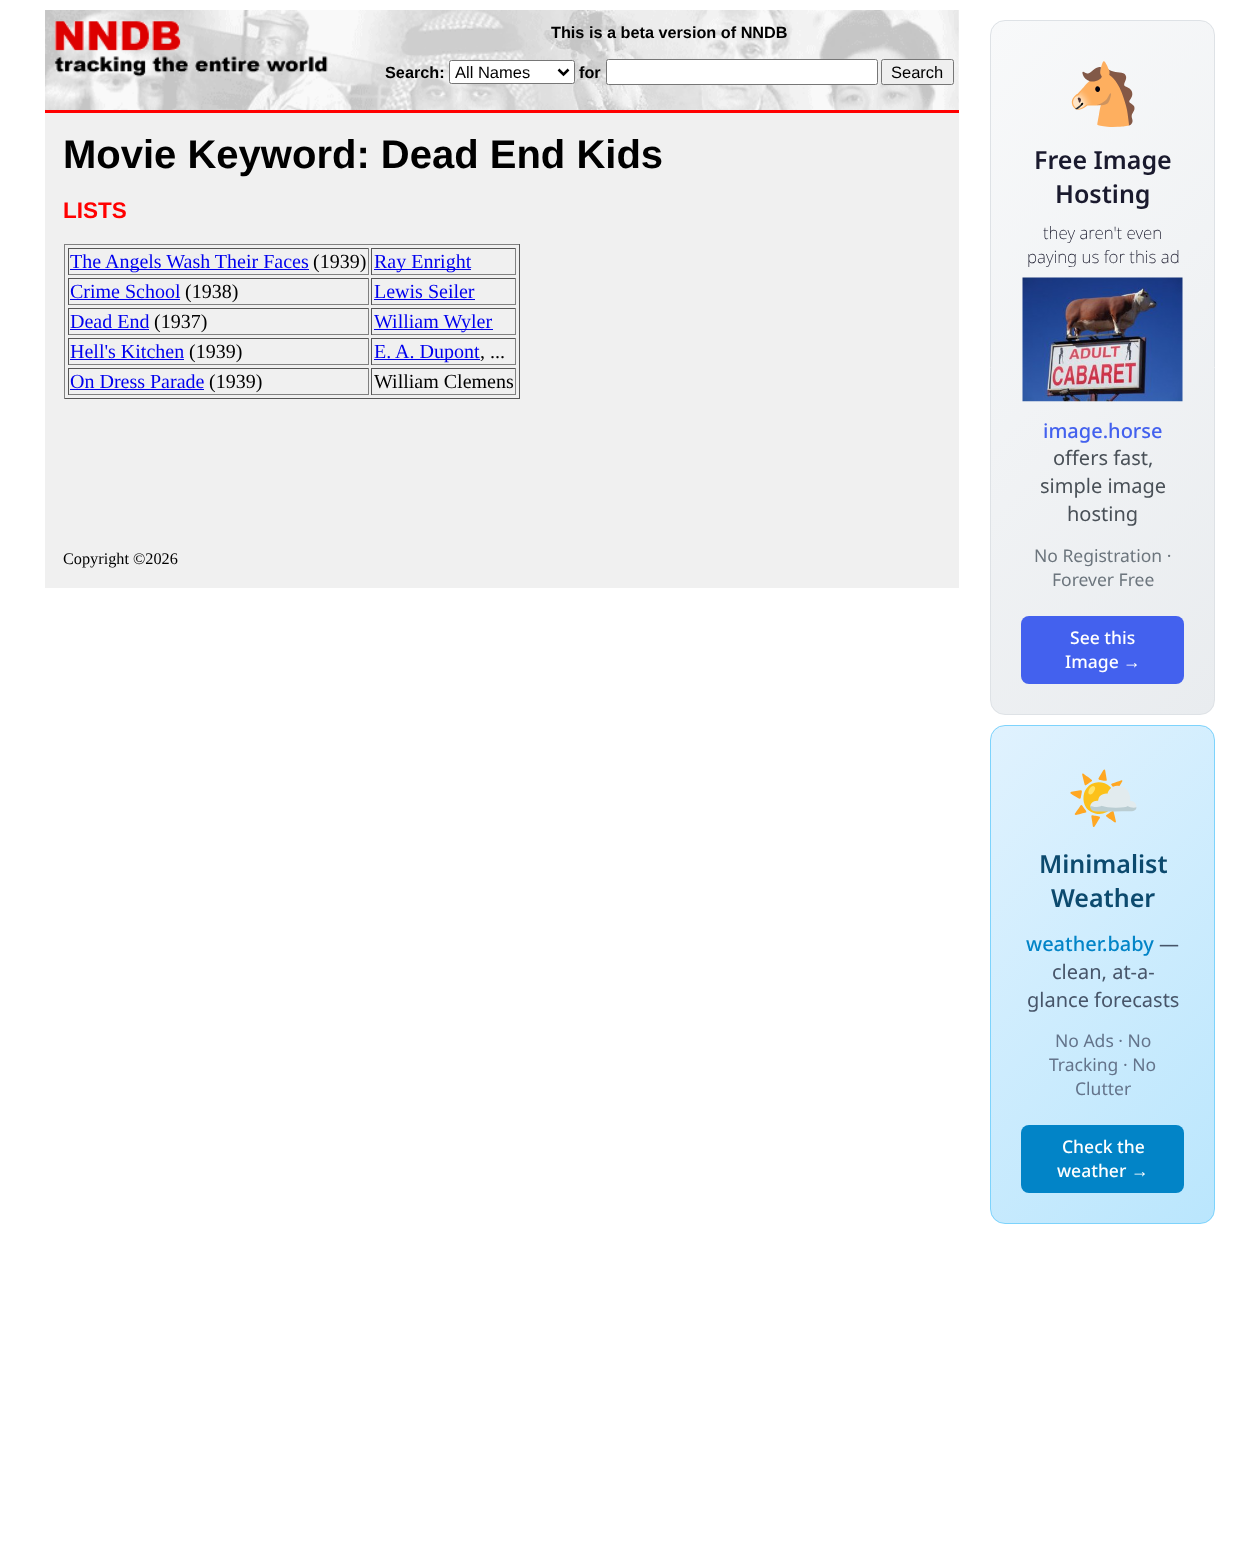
<!DOCTYPE html>
<meta charset="utf-8">
<style>body { margin: 0 } canvas { display: block }</style>
<canvas id="canvas" width="1260" height="1548"></canvas>
<script type="module">
  const canvas = document.getElementById("canvas");
  const g = canvas.getContext("2d");
  g.miterLimit = 4;
  g.fontKerning = "normal";
  function drawText(s, x, y, [font, color]) {
    g.font = font;
    g.fillStyle = color;
    g.fillText(s, x, y);
  }
  function fillBox(x, y, w, h, color) {
    g.fillStyle = color;
    g.fillRect(x, y, w, h);
  }
  function fillRounded(x, y, w, h, r, color) {
    g.fillStyle = color;
    g.beginPath();
    g.roundRect(x, y, w, h, r);
    g.fill();
  }
  async function drawPicture(src, x, y, w, h) {
    const img = new Image();
    img.src = src;
    await img.decode();
    g.drawImage(img, x, y, w, h);
  }
  let gradient;

  const s1 = ["bold 16.25px Liberation Sans", "#000000"];
  const s2 = ["16.5px Liberation Sans", "#000000"];
  const s3 = ["bold 40px Liberation Sans", "#000000"];
  const s4 = ["bold 22.5px Liberation Sans", "#FF0000"];
  const s5 = ["20px Liberation Serif", "#0000EE"];
  const s6 = ["20px Liberation Serif", "#000000"];
  const s7 = ["16.25px Liberation Serif", "#000000"];
  const s8 = ["60px Noto Color Emoji", "#0000EE"];
  const s9 = ["600 25px Noto Sans", "#1A1A2E"];
  const s10 = ["200 17px Noto Sans", "#0A0A1E"];
  const s11 = ["500 20px Noto Sans", "#4361EE"];
  const s12 = ["20px Noto Sans", "#495057"];
  const s13 = ["17.5px Noto Sans", "#6C757D"];
  const s14 = ["500 17.5px Noto Sans", "#FFFFFF"];
  const s15 = ["17.5px Liberation Sans", "#FFFFFF"];
  const s16 = ["600 25px Noto Sans", "#0C4A6E"];
  const s17 = ["500 20px Noto Sans", "#0284C7"];
  const s18 = ["20px Noto Sans", "#475569"];
  const s19 = ["17.5px Noto Sans", "#64748B"];

  fillBox(0, 0, 1260, 1548, "#FFFFFF");
  await drawPicture("pic1.png", 45, 10, 914, 100);
  await drawPicture("pic2.png", 54, 21, 274, 56);
  drawText("This is a beta version of NNDB", 551, 38, s1);
  drawText("Search:", 385, 78, s1);
  g.fillStyle = "#FFFFFF";
  g.beginPath();
  g.roundRect(449.5, 60.5, 125, 23, 2);
  g.fill();
  g.strokeStyle = "#767676";
  g.stroke();
  g.beginPath();
  g.moveTo(558.5, 69.5);
  g.lineTo(563.5, 74.5);
  g.lineTo(568.5, 69.5);
  g.strokeStyle = "#000000";
  g.lineWidth = 2.5;
  g.stroke();
  drawText("All Names", 455, 78, s2);
  drawText("for", 579, 78, s1);
  g.fillStyle = "#FFFFFF";
  g.beginPath();
  g.roundRect(606.5, 59.5, 271, 25, 2);
  g.fill();
  g.strokeStyle = "#767676";
  g.lineWidth = 1;
  g.stroke();
  g.fillStyle = "#EFEFEF";
  g.beginPath();
  g.roundRect(881.5, 59.5, 72, 25, 2);
  g.fill();
  g.stroke();
  drawText("Search", 891, 78, s2);
  fillBox(45, 110, 914, 3, "#FF0000");
  fillBox(45, 113, 914, 475, "#F0F0F0");
  drawText("Movie Keyword: Dead End Kids", 63, 168, s3);
  drawText("LISTS", 63, 218, s4);
  fillBox(64, 244, 456, 1, "#808080");
  fillBox(519, 244, 1, 155, "#555555");
  fillBox(64, 398, 456, 1, "#555555");
  fillBox(64, 244, 1, 155, "#808080");
  fillBox(68, 248, 301, 1, "#555555");
  fillBox(368, 248, 1, 27, "#808080");
  fillBox(68, 274, 301, 1, "#808080");
  fillBox(68, 248, 1, 27, "#555555");
  fillBox(70, 269, 239, 1, "#0000EE");
  drawText("The Angels Wash Their Faces", 70, 268, s5);
  drawText("(1939)", 313, 268, s6);
  fillBox(371, 248, 145, 1, "#555555");
  fillBox(515, 248, 1, 27, "#808080");
  fillBox(371, 274, 145, 1, "#808080");
  fillBox(371, 248, 1, 27, "#555555");
  fillBox(374, 269, 97, 1, "#0000EE");
  drawText("Ray Enright", 374, 268, s5);
  fillBox(68, 278, 301, 1, "#555555");
  fillBox(368, 278, 1, 27, "#808080");
  fillBox(68, 304, 301, 1, "#808080");
  fillBox(68, 278, 1, 27, "#555555");
  drawText("Crime School", 70, 298, s5);
  fillBox(70, 299, 110, 1, "#0000EE");
  drawText("(1938)", 185, 298, s6);
  fillBox(371, 278, 145, 1, "#555555");
  fillBox(515, 278, 1, 27, "#808080");
  fillBox(371, 304, 145, 1, "#808080");
  fillBox(371, 278, 1, 27, "#555555");
  drawText("Lewis Seiler", 374, 298, s5);
  fillBox(374, 299, 101, 1, "#0000EE");
  fillBox(68, 308, 301, 1, "#555555");
  fillBox(368, 308, 1, 27, "#808080");
  fillBox(68, 334, 301, 1, "#808080");
  fillBox(68, 308, 1, 27, "#555555");
  drawText("Dead End", 70, 328, s5);
  fillBox(70, 329, 79, 1, "#0000EE");
  drawText("(1937)", 154, 328, s6);
  fillBox(371, 308, 145, 1, "#555555");
  fillBox(515, 308, 1, 27, "#808080");
  fillBox(371, 334, 145, 1, "#808080");
  fillBox(371, 308, 1, 27, "#555555");
  fillBox(374, 329, 119, 1, "#0000EE");
  drawText("William Wyler", 374, 328, s5);
  fillBox(68, 338, 301, 1, "#555555");
  fillBox(368, 338, 1, 27, "#808080");
  fillBox(68, 364, 301, 1, "#808080");
  fillBox(68, 338, 1, 27, "#555555");
  drawText("Hell's Kitchen", 70, 358, s5);
  fillBox(70, 359, 114, 1, "#0000EE");
  drawText("(1939)", 189, 358, s6);
  fillBox(371, 338, 145, 1, "#555555");
  fillBox(515, 338, 1, 27, "#808080");
  fillBox(371, 364, 145, 1, "#808080");
  fillBox(371, 338, 1, 27, "#555555");
  fillBox(374, 359, 106, 1, "#0000EE");
  drawText("E. A. Dupont", 374, 358, s5);
  drawText(", ...", 480, 358, s6);
  fillBox(68, 368, 301, 1, "#555555");
  fillBox(368, 368, 1, 27, "#808080");
  fillBox(68, 394, 301, 1, "#808080");
  fillBox(68, 368, 1, 27, "#555555");
  drawText("On Dress Parade", 70, 388, s5);
  fillBox(70, 389, 134, 1, "#0000EE");
  drawText("(1939)", 209, 388, s6);
  fillBox(371, 368, 145, 1, "#555555");
  fillBox(515, 368, 1, 27, "#808080");
  fillBox(371, 394, 145, 1, "#808080");
  fillBox(371, 368, 1, 27, "#555555");
  drawText("William Clemens", 374, 388, s6);
  drawText("Copyright ©2026", 63, 564, s7);
  g.save();
  g.beginPath();
  g.roundRect(990, 20, 225, 695, 15);
  g.clip();
  gradient = g.createLinearGradient(874, 139, 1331, 596);
  gradient.addColorStop(0, "#F8F9FA");
  gradient.addColorStop(1, "#E9ECEF");
  g.fillStyle = gradient;
  g.fillRect(991, 21, 223, 693);
  g.restore();
  g.beginPath();
  g.roundRect(990.5, 20.5, 224, 694, 14.5);
  g.strokeStyle = "#DEE2E6";
  g.stroke();
  drawText("🐴", 1066, 115, s8);
  drawText("Free Image", 1034, 169, s9);
  drawText("Hosting", 1055, 203, s9);
  drawText("they aren't even", 1043, 239, s10);
  drawText("paying us for this ad", 1027, 263, s10);
  await drawPicture("pic3.png", 1022, 277, 161, 125);
  drawText("image.horse", 1043, 438, s11);
  drawText("offers fast,", 1053, 465, s12);
  drawText("simple image", 1040, 493, s12);
  drawText("hosting", 1067, 521, s12);
  drawText("No Registration ·", 1034, 562, s13);
  drawText("Forever Free", 1052, 586, s13);
  fillRounded(1021, 616, 163, 68, 8, "#4361EE");
  drawText("See this", 1070, 644, s14);
  drawText("Image", 1065, 668, s14);
  drawText("→", 1123, 668, s15);
  g.save();
  g.beginPath();
  g.roundRect(990, 725, 225, 499, 15);
  g.clip();
  gradient = g.createLinearGradient(923, 795, 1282, 1154);
  gradient.addColorStop(0, "#E0F2FE");
  gradient.addColorStop(1, "#BAE6FD");
  g.fillStyle = gradient;
  g.fillRect(991, 726, 223, 497);
  g.restore();
  g.beginPath();
  g.roundRect(990.5, 725.5, 224, 498, 14.5);
  g.strokeStyle = "#7DD3FC";
  g.stroke();
  drawText("🌤️", 1066, 819, s8);
  drawText("Minimalist", 1039, 873, s16);
  drawText("Weather", 1051, 907, s16);
  drawText("weather.baby", 1026, 951, s17);
  drawText("—", 1159, 951, s18);
  drawText("clean, at-a-", 1052, 979, s18);
  drawText("glance forecasts", 1027, 1007, s18);
  drawText("No Ads · No", 1055, 1047, s19);
  drawText("Tracking · No", 1049, 1071, s19);
  drawText("Clutter", 1075, 1095, s19);
  fillRounded(1021, 1125, 163, 68, 8, "#0284C7");
  drawText("Check the", 1062, 1153, s14);
  drawText("weather", 1057, 1177, s14);
  drawText("→", 1131, 1177, s15);
</script>
